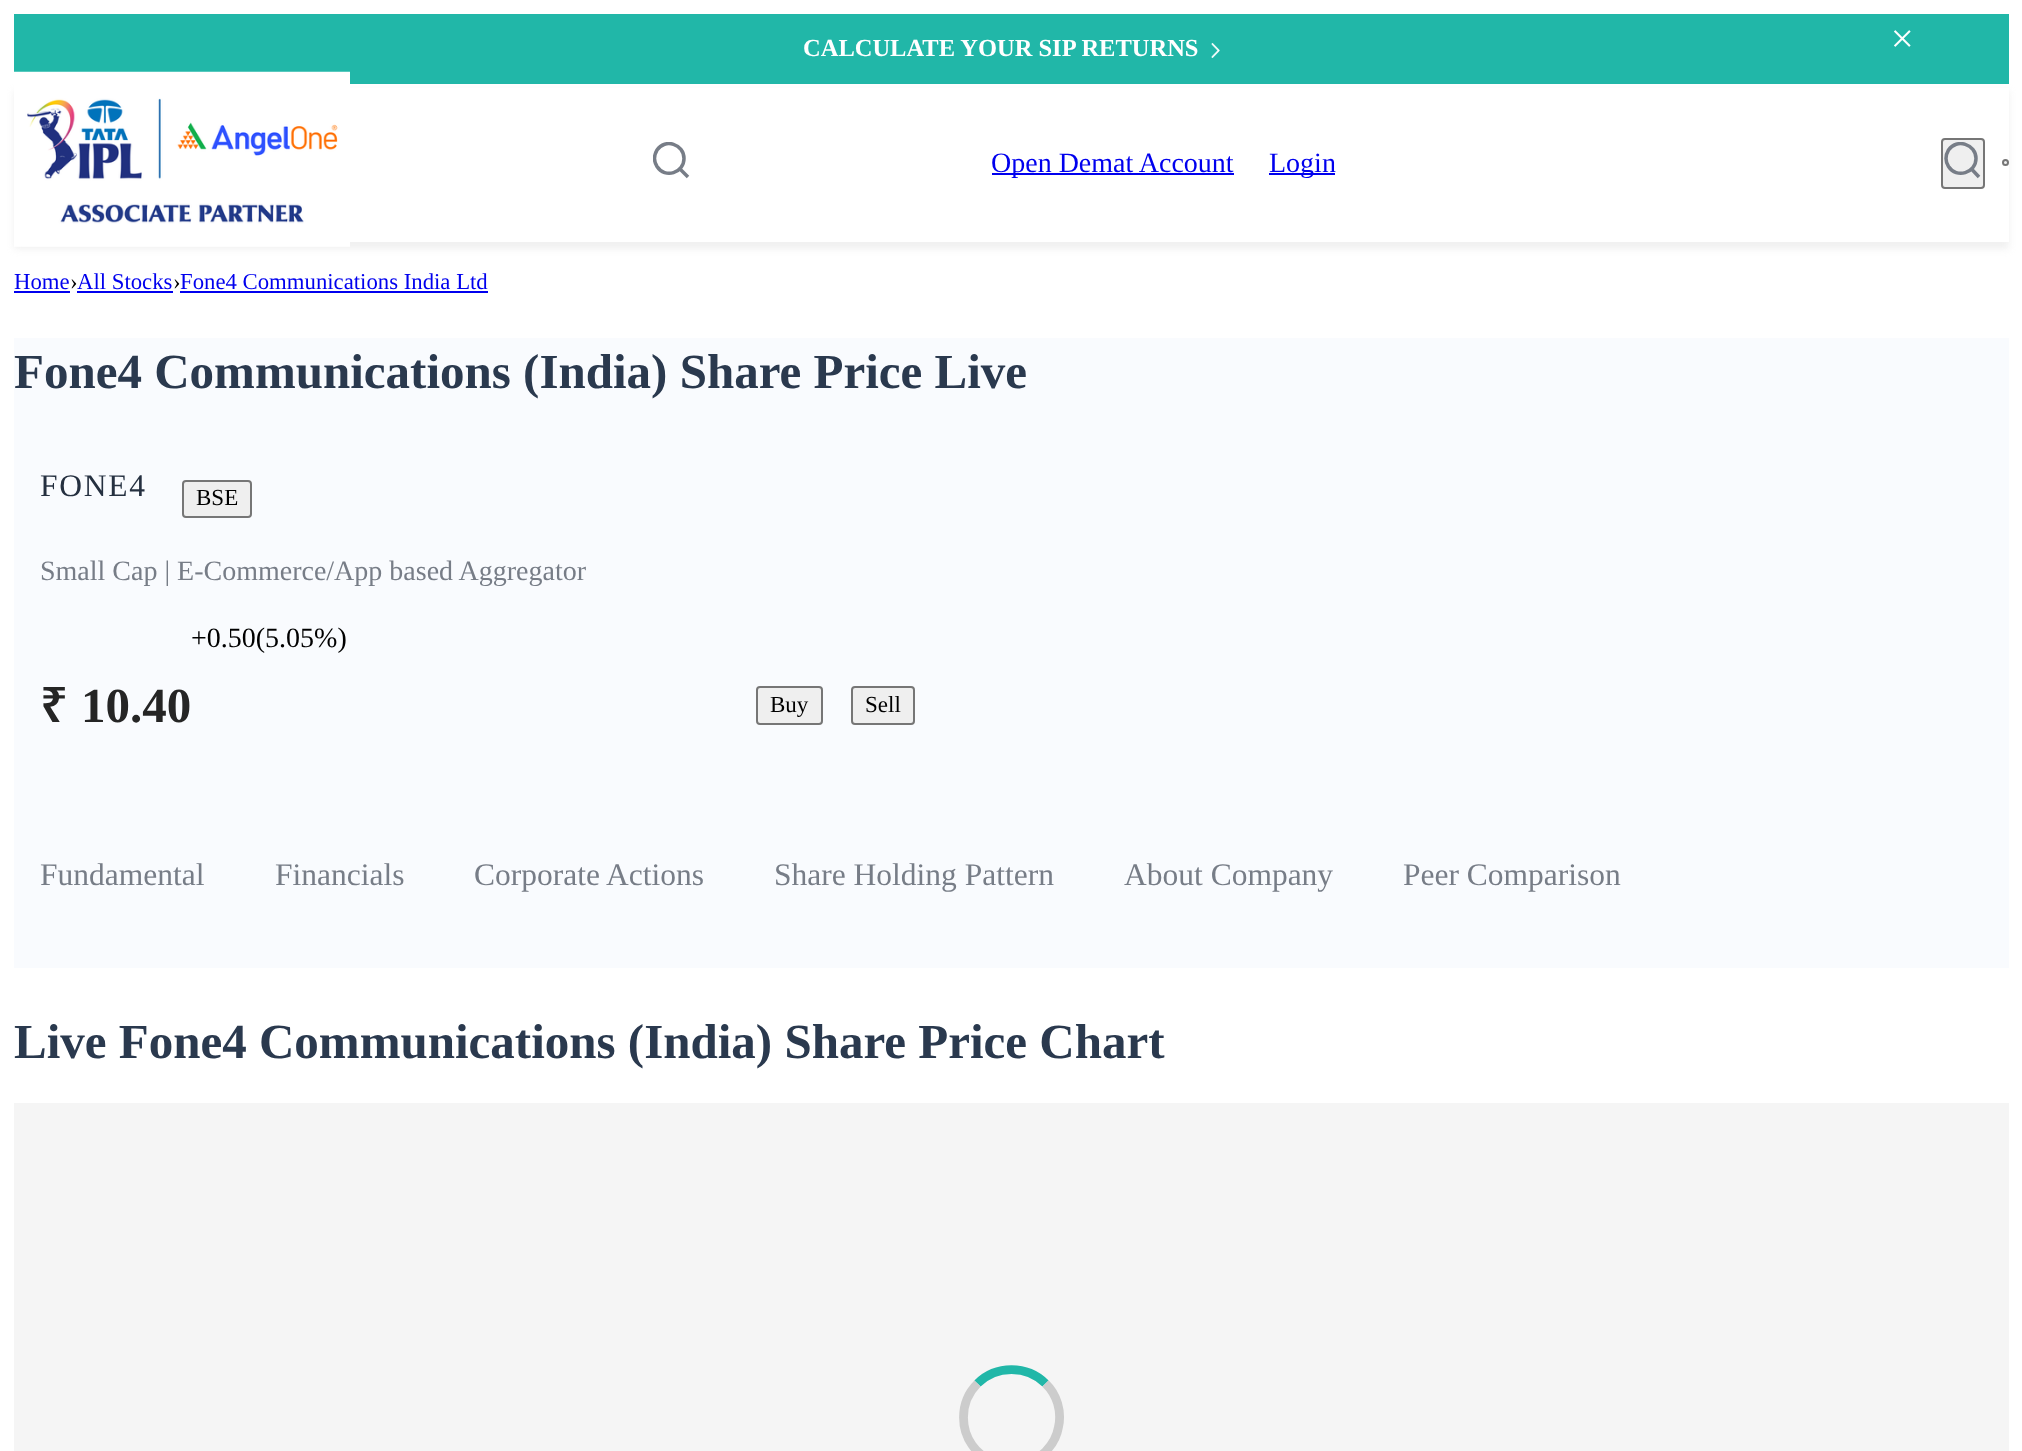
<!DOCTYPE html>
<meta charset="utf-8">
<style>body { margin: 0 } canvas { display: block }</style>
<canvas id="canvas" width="2022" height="1451"></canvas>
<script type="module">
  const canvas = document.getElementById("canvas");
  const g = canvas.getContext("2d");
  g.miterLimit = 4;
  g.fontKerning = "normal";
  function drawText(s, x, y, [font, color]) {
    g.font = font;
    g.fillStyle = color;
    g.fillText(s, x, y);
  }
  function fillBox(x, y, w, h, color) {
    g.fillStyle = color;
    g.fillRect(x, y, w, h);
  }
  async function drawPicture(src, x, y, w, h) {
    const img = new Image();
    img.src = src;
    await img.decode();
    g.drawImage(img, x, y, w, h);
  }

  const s1 = ["bold 24.5px Liberation Serif", "#FFFFFF"];
  const s2 = ["28px Liberation Serif", "#0000EE"];
  const s3 = ["22.75px Liberation Serif", "#0000EE"];
  const s4 = ["22.75px Liberation Serif", "#000000"];
  const s5 = ["bold 49px Liberation Serif", "#2A394E"];
  const s6 = ["31.5px Liberation Serif", "#253040"];
  const s7 = ["23px Liberation Serif", "#000000"];
  const s8 = ["28px Liberation Serif", "#777D87"];
  const s9 = ["28px Liberation Serif", "#000000"];
  const s10 = ["600 49px Noto Sans", "#252525"];
  const s11 = ["bold 49px Liberation Serif", "#252525"];
  const s12 = ["31.5px Liberation Serif", "#777D87"];

  fillBox(0, 0, 2022, 1451, "#FFFFFF");
  fillBox(14, 14, 1995, 70, "#21B7A8");
  drawText("CALCULATE YOUR SIP RETURNS", 803, 56, s1);
  await drawPicture("pic1.png", 1211, 43, 9, 15);
  await drawPicture("pic2.png", 1894, 30, 17, 17);
  g.fillStyle = "rgba(197, 197, 197, 0.25)";
  g.filter = "blur(3.5px)";
  g.beginPath();
  g.rect(14, 91, 1995, 158);
  g.fill();
  g.filter = "none";
  fillBox(350, 88, 1659, 154, "#FFFFFF");
  await drawPicture("pic3.png", 14, 71, 336, 176);
  g.save();
  g.beginPath();
  g.rect(653, 142, 37, 37);
  g.clip();
  g.beginPath();
  g.moveTo(688, 177);
  g.lineTo(680, 169);
  g.closePath();
  g.moveTo(684, 158.5);
  g.bezierCurveTo(684, 173, 665, 179, 657, 166.5);
  g.bezierCurveTo(655.5, 164, 654.5, 161.5, 654.5, 158.5);
  g.bezierCurveTo(654.5, 155.5, 655.5, 152.5, 657, 150);
  g.bezierCurveTo(665, 138, 684, 144, 684, 158.5);
  g.closePath();
  g.strokeStyle = "#777D87";
  g.lineWidth = 3.5;
  g.lineCap = "round";
  g.stroke();
  g.restore();
  fillBox(992, 173, 242, 2, "#0000EE");
  drawText("Open Demat Account", 991, 172, s2);
  fillBox(1269, 173, 66, 2, "#0000EE");
  drawText("Login", 1269, 172, s2);
  g.fillStyle = "#EFEFEF";
  g.beginPath();
  g.roundRect(1942, 139, 42, 49, 3);
  g.fill();
  g.strokeStyle = "#767676";
  g.lineWidth = 2;
  g.stroke();
  g.save();
  g.beginPath();
  g.rect(1944, 142, 37, 37);
  g.clip();
  g.beginPath();
  g.moveTo(1979, 177);
  g.lineTo(1971.5, 169);
  g.closePath();
  g.moveTo(1976, 158.5);
  g.bezierCurveTo(1976, 173, 1956.5, 179, 1948.5, 166.5);
  g.bezierCurveTo(1947, 164, 1946, 161.5, 1946, 158.5);
  g.bezierCurveTo(1946, 155.5, 1947, 152.5, 1948.5, 150);
  g.bezierCurveTo(1956.5, 138, 1976, 144, 1976, 158.5);
  g.closePath();
  g.strokeStyle = "#777D87";
  g.lineWidth = 3.5;
  g.lineCap = "round";
  g.stroke();
  g.restore();
  g.beginPath();
  g.arc(2005.5, 162.5, 2.5, 0, Math.PI * 2);
  g.fill();
  g.stroke();
  drawText("Home", 14, 289, s3);
  fillBox(14, 291, 56, 2, "#0000EE");
  drawText("›", 70, 289, s4);
  drawText("All Stocks", 77, 289, s3);
  fillBox(77, 291, 96, 2, "#0000EE");
  drawText("›", 173, 289, s4);
  drawText("Fone4 Communications India Ltd", 180, 289, s3);
  fillBox(180, 291, 308, 2, "#0000EE");
  fillBox(14, 338, 1995, 630, "#F9FBFE");
  drawText("Fone4 Communications (India) Share Price Live", 14, 388, s5);
  g.letterSpacing = "1.75px";
  drawText("FONE4", 40, 496, s6);
  g.fillStyle = "#EFEFEF";
  g.beginPath();
  g.roundRect(183, 481, 68, 36, 3);
  g.fill();
  g.stroke();
  g.letterSpacing = "0px";
  drawText("BSE", 196, 505, s7);
  drawText("Small Cap | E-Commerce/App based Aggregator", 40, 580, s8);
  drawText("+0.50(5.05%)", 191, 647, s9);
  drawText("₹", 40, 722, s10);
  drawText("10.40", 81, 722, s11);
  g.fillStyle = "#EFEFEF";
  g.beginPath();
  g.roundRect(757, 687, 65, 37, 3);
  g.fill();
  g.stroke();
  drawText("Buy", 770, 712, s7);
  g.fillStyle = "#EFEFEF";
  g.beginPath();
  g.roundRect(852, 687, 62, 37, 3);
  g.fill();
  g.stroke();
  drawText("Sell", 865, 712, s7);
  drawText("Fundamental", 40, 885, s12);
  drawText("Financials", 275, 885, s12);
  drawText("Corporate Actions", 474, 885, s12);
  drawText("Share Holding Pattern", 774, 885, s12);
  drawText("About Company", 1124, 885, s12);
  drawText("Peer Comparison", 1403, 885, s12);
  drawText("Live Fone4 Communications (India) Share Price Chart", 14, 1058, s5);
  fillBox(14, 1103, 1995, 348, "#F5F5F5");
  g.beginPath();
  g.moveTo(977.5, 1383.5);
  g.bezierCurveTo(996, 1365, 1027, 1365, 1045.5, 1383.5);
  g.strokeStyle = "#21B7A8";
  g.lineWidth = 8.8;
  g.stroke();
  g.beginPath();
  g.moveTo(1045.5, 1383.5);
  g.bezierCurveTo(1057, 1394.5, 1062, 1411.5, 1058.5, 1427);
  g.bezierCurveTo(1057, 1436, 1052, 1445, 1045.5, 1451.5);
  g.bezierCurveTo(1015.5, 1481.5, 963.5, 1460, 963.5, 1417.5);
  g.bezierCurveTo(963.5, 1405, 968.5, 1392.5, 977.5, 1383.5);
  g.strokeStyle = "#CCCCCC";
  g.stroke();
</script>
